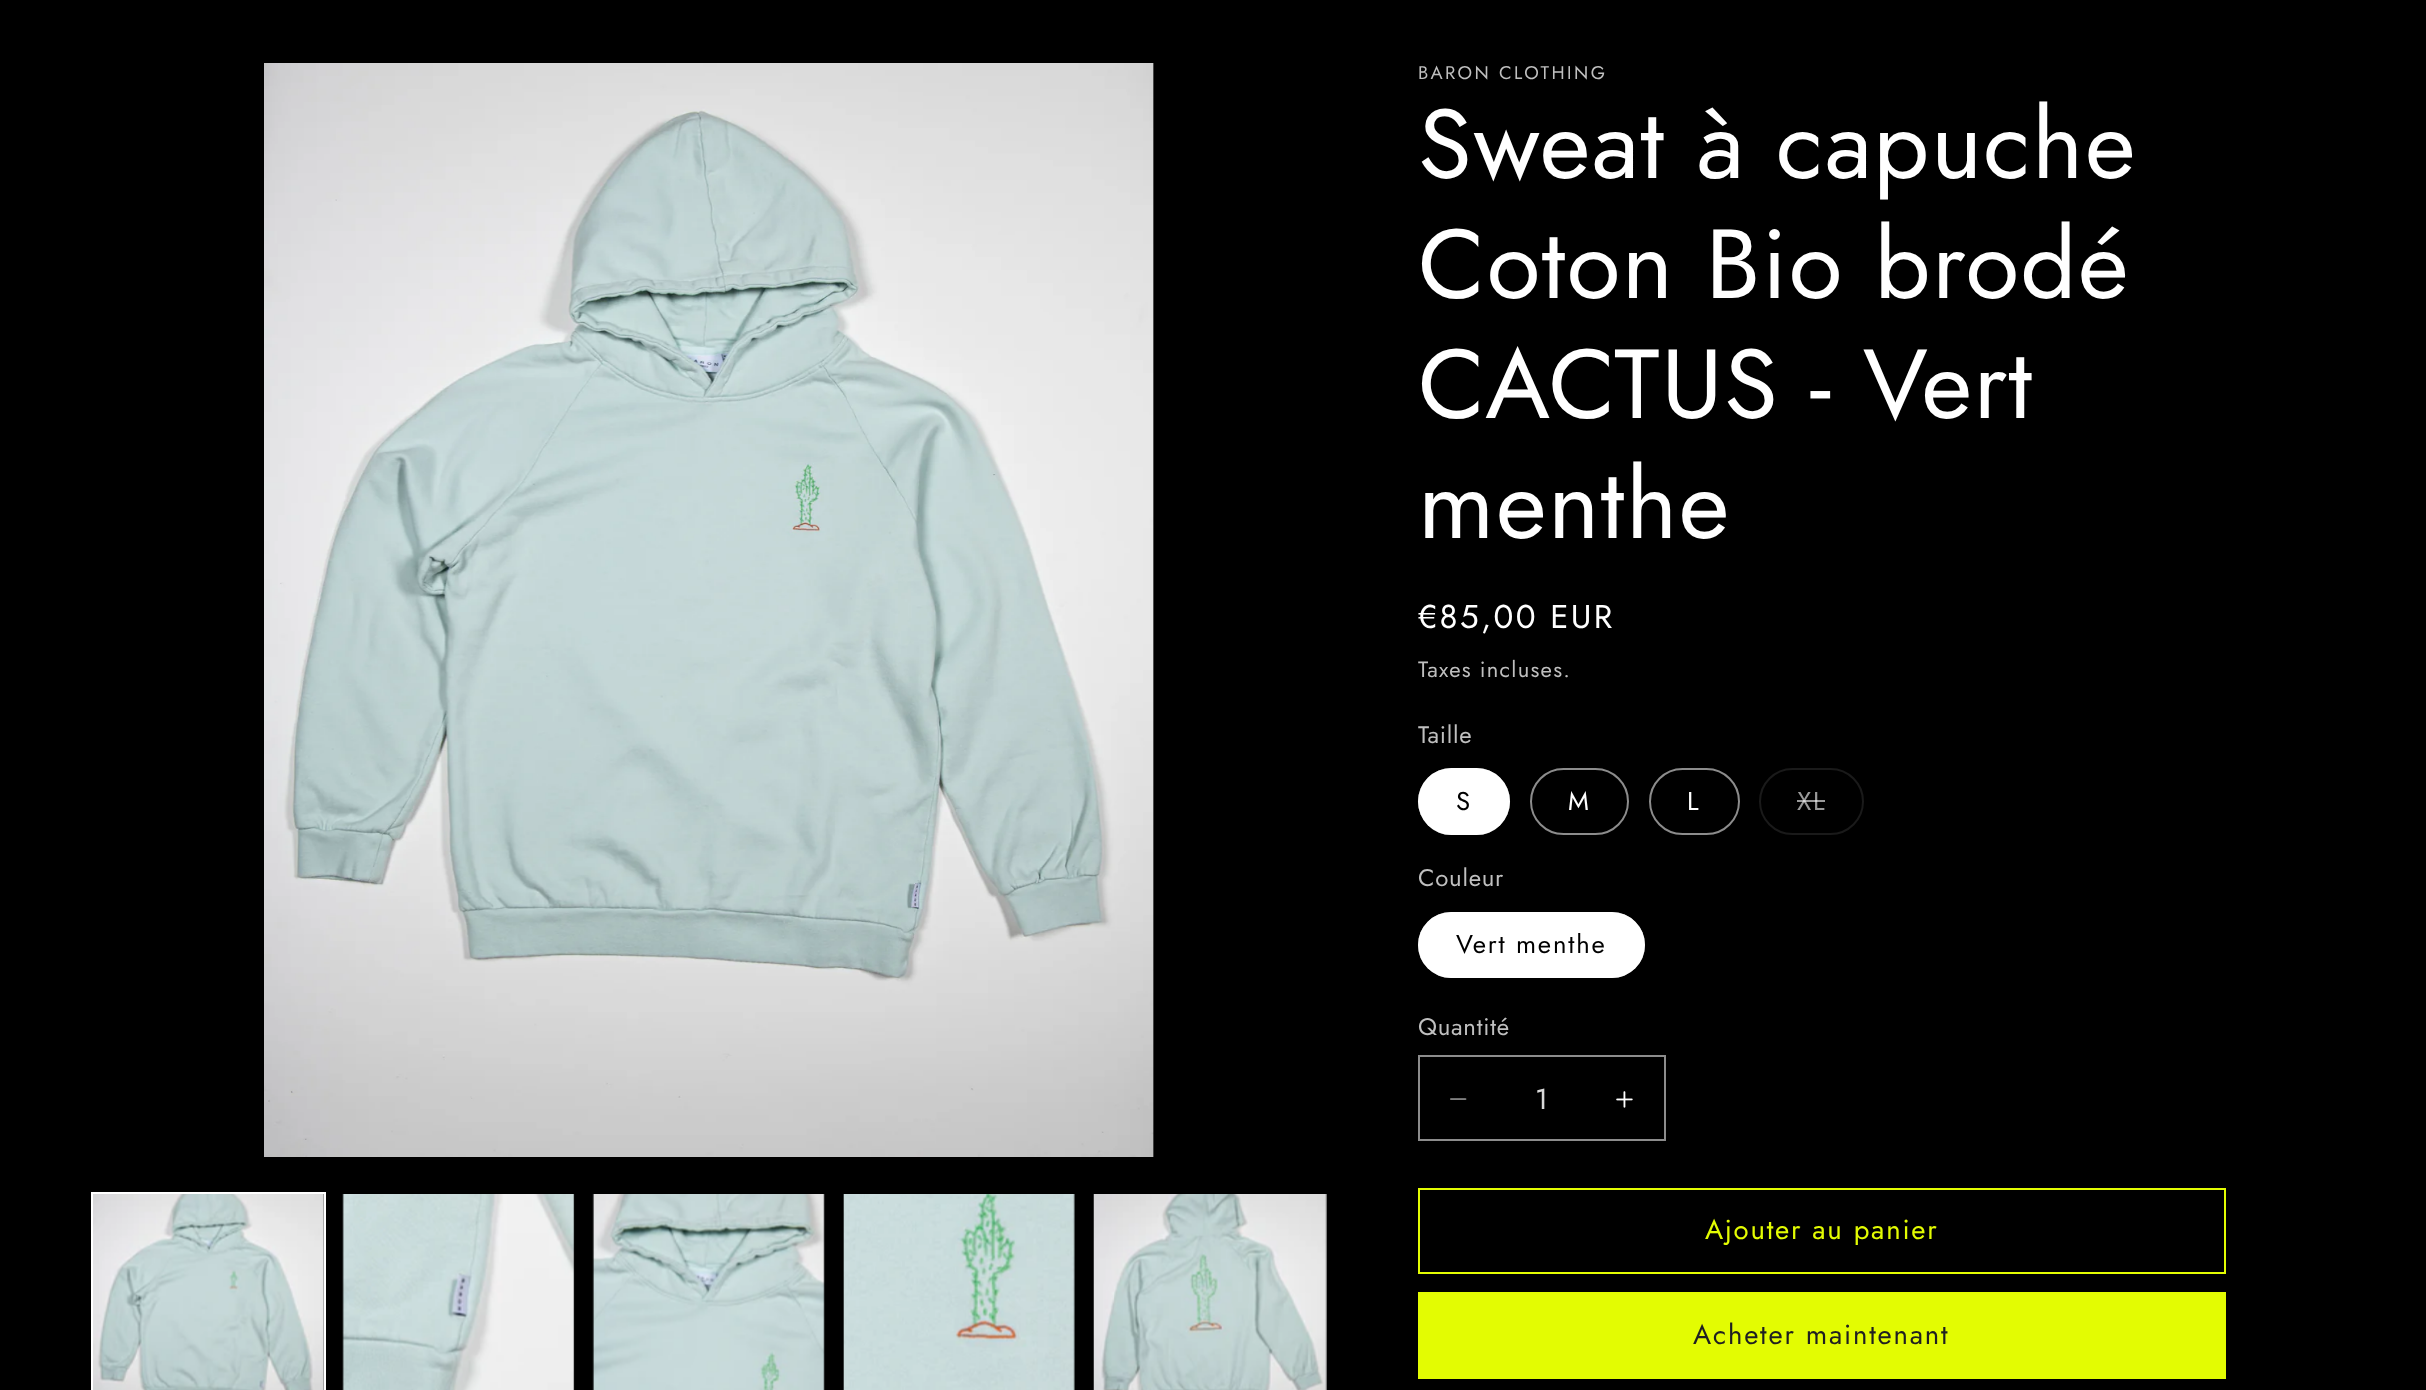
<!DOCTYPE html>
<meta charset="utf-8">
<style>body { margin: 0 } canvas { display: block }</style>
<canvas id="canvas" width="2426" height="1390"></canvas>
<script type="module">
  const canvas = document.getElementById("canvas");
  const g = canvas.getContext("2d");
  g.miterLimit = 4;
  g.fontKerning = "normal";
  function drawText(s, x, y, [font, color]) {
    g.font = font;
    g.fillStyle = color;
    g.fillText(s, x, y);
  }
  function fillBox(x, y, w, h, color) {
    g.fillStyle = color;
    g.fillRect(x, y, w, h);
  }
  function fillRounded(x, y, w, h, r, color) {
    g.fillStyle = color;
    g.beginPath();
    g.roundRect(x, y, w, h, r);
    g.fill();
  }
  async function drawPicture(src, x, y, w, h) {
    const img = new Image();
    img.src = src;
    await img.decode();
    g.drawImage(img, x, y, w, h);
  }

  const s1 = ["18.4px Jost", "#BFBFBF"];
  const s2 = ["98px Jost", "#FFFFFF"];
  const s3 = ["33px Jost", "#FFFFFF"];
  const s4 = ["22px Jost", "#BFBFBF"];
  const s5 = ["24px Jost", "#BFBFBF"];
  const s6 = ["25.75px Jost", "#000000"];
  const s7 = ["25.75px Jost", "#FFFFFF"];
  const s8 = ["25.75px Jost", "#999999"];
  const s9 = ["29px Jost", "#D9D9D9"];
  const s10 = ["27.5px Jost", "#E3FC02"];
  const s11 = ["27.5px Jost", "#1F1F21"];

  fillBox(0, 0, 2426, 1390, "#000000");
  await drawPicture("pic1.png", 264, 63, 890, 1094);
  g.strokeStyle = "#FFFFFF";
  g.lineWidth = 2;
  g.strokeRect(92, 1193, 233, 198);
  await drawPicture("pic2.png", 93, 1194, 231, 196);
  await drawPicture("pic3.png", 342, 1194, 233, 196);
  await drawPicture("pic4.png", 592, 1194, 233, 196);
  await drawPicture("pic5.png", 843, 1194, 232, 196);
  await drawPicture("pic6.png", 1093, 1194, 234, 196);
  g.letterSpacing = "2.4px";
  drawText("BARON CLOTHING", 1418, 79, s1);
  g.letterSpacing = "1.5px";
  drawText("Sweat à capuche", 1418, 178, s2);
  drawText("Coton Bio brodé", 1418, 298, s2);
  drawText("CACTUS - Vert", 1418, 418, s2);
  drawText("menthe", 1418, 538, s2);
  g.letterSpacing = "2.4px";
  drawText("€85,00 EUR", 1418, 628, s3);
  g.letterSpacing = "1.25px";
  drawText("Taxes incluses.", 1418, 677, s4);
  g.letterSpacing = "0.75px";
  drawText("Taille", 1418, 743, s5);
  fillRounded(1418, 768, 92, 67, 33.5, "#FFFFFF");
  g.beginPath();
  g.roundRect(1419, 769, 90, 65, 32.5);
  g.strokeStyle = "rgba(255, 255, 255, 0.55)";
  g.stroke();
  g.letterSpacing = "1.8px";
  drawText("S", 1456, 810, s6);
  g.beginPath();
  g.roundRect(1531, 769, 97, 65, 32.5);
  g.strokeStyle = "#8C8C8C";
  g.stroke();
  drawText("M", 1568, 810, s7);
  g.beginPath();
  g.roundRect(1650, 769, 89, 65, 32.5);
  g.stroke();
  drawText("L", 1687, 810, s7);
  g.beginPath();
  g.roundRect(1760, 769, 103, 65, 32.5);
  g.strokeStyle = "#1A1A1A";
  g.stroke();
  drawText("XL", 1797, 810, s8);
  fillBox(1797, 800, 28, 2, "rgba(255, 255, 255, 0.6)");
  g.letterSpacing = "0.75px";
  drawText("Couleur", 1418, 886, s5);
  fillRounded(1418, 912, 227, 66, 33, "#FFFFFF");
  g.beginPath();
  g.roundRect(1419, 913, 225, 64, 32);
  g.strokeStyle = "rgba(255, 255, 255, 0.55)";
  g.stroke();
  g.letterSpacing = "1.8px";
  drawText("Vert menthe", 1456, 953, s6);
  g.letterSpacing = "0.75px";
  drawText("Quantité", 1418, 1035, s5);
  await drawPicture("pic7.png", 1450, 1098, 17, 2);
  await drawPicture("pic8.png", 1616, 1091, 17, 17);
  g.strokeStyle = "#8C8C8C";
  g.strokeRect(1419, 1056, 246, 84);
  g.letterSpacing = "0px";
  drawText("1", 1535, 1109, s9);
  g.strokeStyle = "#E3FC02";
  g.strokeRect(1419, 1189, 806, 84);
  g.letterSpacing = "1.8px";
  drawText("Ajouter au panier", 1705, 1239, s10);
  fillBox(1418, 1292, 808, 87, "#E3FC02");
  drawText("Acheter maintenant", 1693, 1344, s11);
</script>
